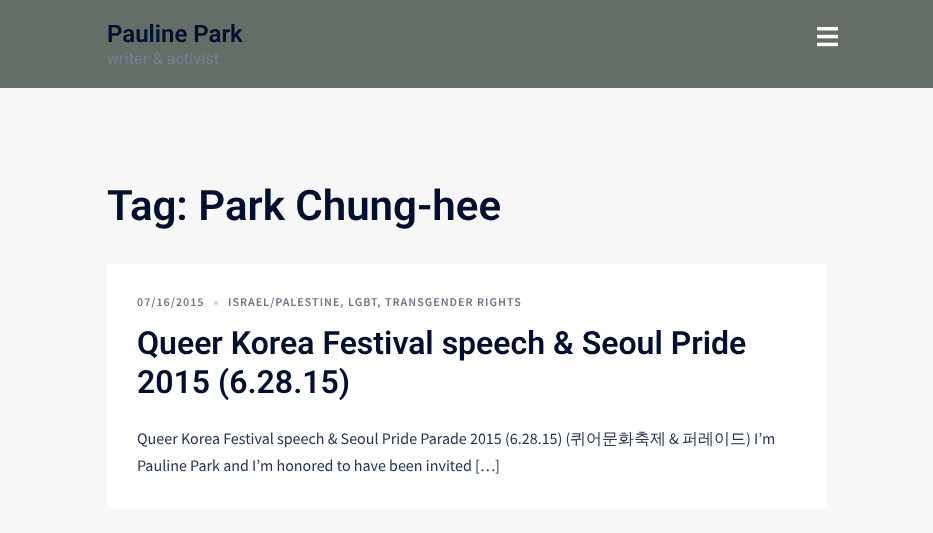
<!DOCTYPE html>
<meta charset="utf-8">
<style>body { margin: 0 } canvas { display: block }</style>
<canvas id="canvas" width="933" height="533"></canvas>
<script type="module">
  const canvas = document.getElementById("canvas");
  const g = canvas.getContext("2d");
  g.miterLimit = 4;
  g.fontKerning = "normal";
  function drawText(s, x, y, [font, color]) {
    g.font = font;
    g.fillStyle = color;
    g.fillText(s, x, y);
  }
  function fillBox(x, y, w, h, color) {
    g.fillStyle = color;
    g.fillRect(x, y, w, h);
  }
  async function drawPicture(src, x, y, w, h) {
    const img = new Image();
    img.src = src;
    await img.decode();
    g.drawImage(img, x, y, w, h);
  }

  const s1 = ["600 24px Roboto", "#00102E"];
  const s2 = ["600 16px Roboto", "#737C8C"];
  const s3 = ["600 42px Roboto", "#00102E"];
  const s4 = ["600 12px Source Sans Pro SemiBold", "#6D7685"];
  const s5 = ["600 12px Source Sans Pro SemiBold", "#737C8C"];
  const s6 = ["600 32px Roboto", "#00102E"];
  const s7 = ["16px Source Sans Pro", "#233452"];
  const s8 = ["500 16px WenQuanYi Zen Hei", "#233452"];

  fillBox(0, 0, 933, 533, "#F7F7F7");
  fillBox(0, 0, 933, 88, "#646D66");
  drawText("Pauline Park", 107, 42, s1);
  drawText("writer & activist", 107, 64, s2);
  await drawPicture("pic1.png", 817, 26, 21, 21);
  drawText("Tag: Park Chung-hee", 107, 220, s3);
  fillBox(107, 264, 720, 245, "#FFFFFF");
  g.letterSpacing = "1px";
  drawText("07/16/2015", 137, 306, s4);
  g.fillStyle = "#CCCFD5";
  g.beginPath();
  g.arc(216, 303, 2, 0, Math.PI * 2);
  g.fill();
  drawText("ISRAEL/PALESTINE", 228, 306, s4);
  drawText(",", 340, 306, s5);
  drawText("LGBT", 348, 306, s4);
  drawText(",", 377, 306, s5);
  drawText("TRANSGENDER RIGHTS", 385, 306, s4);
  g.letterSpacing = "0px";
  drawText("Queer Korea Festival speech & Seoul Pride", 137, 354, s6);
  drawText("2015 (6.28.15)", 137, 393, s6);
  drawText("Queer Korea Festival speech & Seoul Pride Parade 2015 (6.28.15) (", 137, 444, s7);
  drawText("퀴어문화축제", 570, 444, s8);
  drawText("&", 669, 444, s7);
  drawText("퍼레이드", 682, 444, s8);
  drawText(") I’m", 746, 444, s7);
  drawText("Pauline Park and I’m honored to have been invited […]", 137, 471, s7);
</script>
